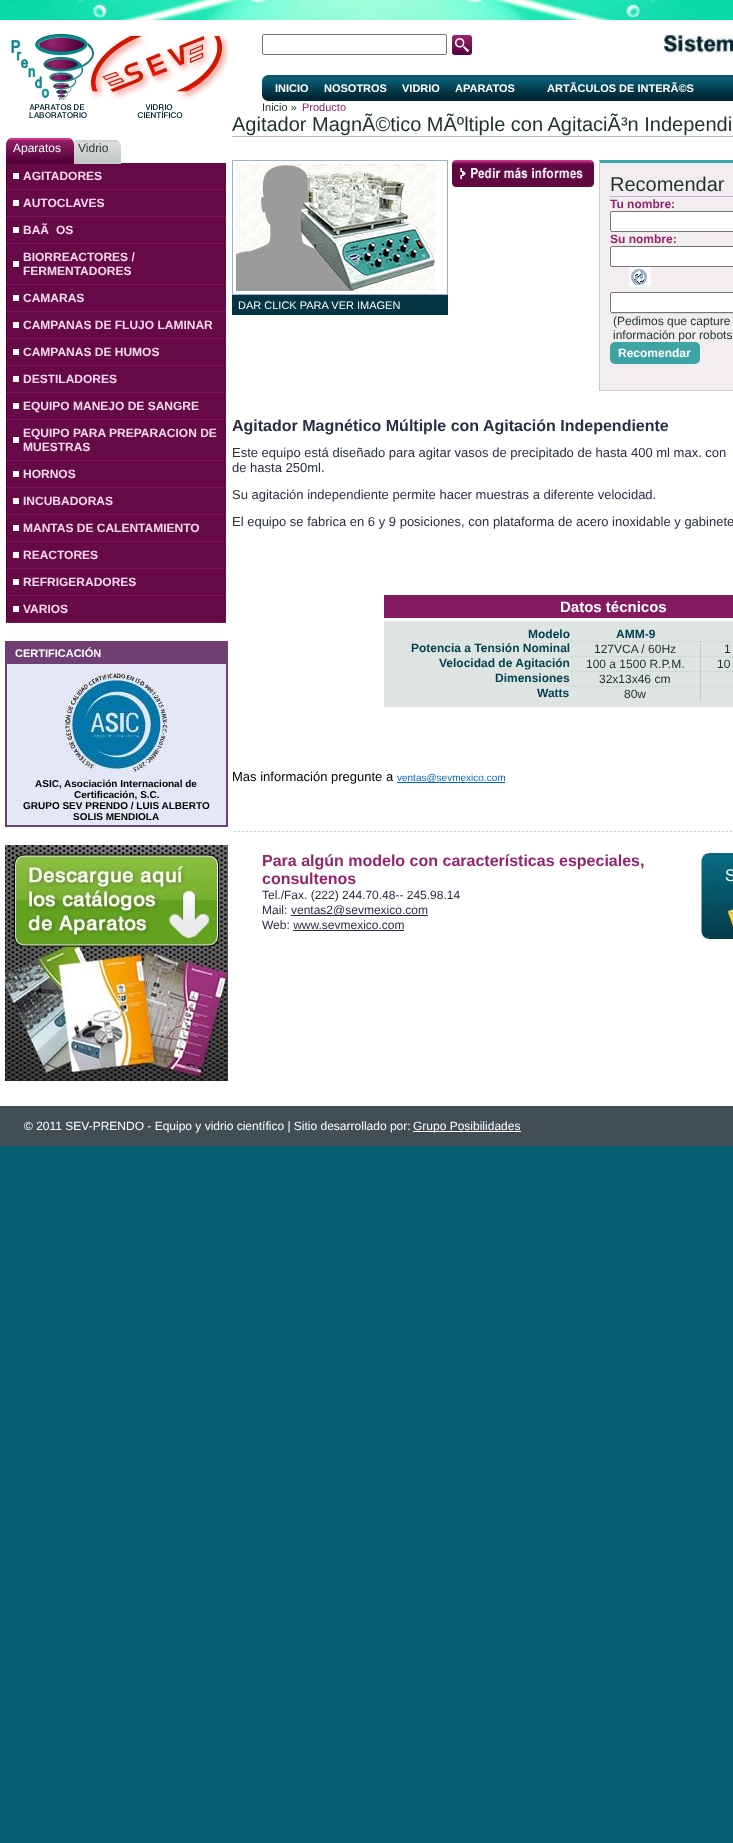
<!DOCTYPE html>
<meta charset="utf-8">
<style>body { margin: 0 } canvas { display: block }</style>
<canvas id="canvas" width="733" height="1843"></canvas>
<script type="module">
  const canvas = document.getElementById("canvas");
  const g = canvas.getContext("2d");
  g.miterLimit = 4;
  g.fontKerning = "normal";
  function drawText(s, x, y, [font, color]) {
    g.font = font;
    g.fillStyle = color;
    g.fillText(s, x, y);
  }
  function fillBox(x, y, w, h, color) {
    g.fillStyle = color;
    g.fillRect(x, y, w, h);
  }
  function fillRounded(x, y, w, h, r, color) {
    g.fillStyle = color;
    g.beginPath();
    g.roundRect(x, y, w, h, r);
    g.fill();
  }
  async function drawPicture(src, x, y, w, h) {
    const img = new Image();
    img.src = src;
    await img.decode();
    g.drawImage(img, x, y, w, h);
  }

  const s1 = ["12px Liberation Sans", "#FFFFFF"];
  const s2 = ["12px Liberation Sans", "#333333"];
  const s3 = ["bold 12px Liberation Sans", "#F5D8EB"];
  const s4 = ["bold 11px Liberation Sans", "#FFFFFF"];
  const s5 = ["bold 10px Liberation Sans", "#000000"];
  const s6 = ["11px Liberation Sans", "#1E312C"];
  const s7 = ["11px Liberation Sans", "#95246E"];
  const s8 = ["20px Liberation Sans", "#1E312C"];
  const s9 = ["11px Liberation Sans", "#FFFFFF"];
  const s10 = ["bold 12px Liberation Sans", "#95246E"];
  const s11 = ["12px Liberation Sans", "#1E312C"];
  const s12 = ["bold 12px Liberation Sans", "#FFFFFF"];
  const s13 = ["bold 16px Liberation Sans", "#282E46"];
  const s14 = ["13px Liberation Sans", "#282E46"];
  const s15 = ["bold 15px Liberation Sans", "#FFFFFF"];
  const s16 = ["bold 12px Liberation Sans", "#044153"];
  const s17 = ["13px Liberation Sans", "#000000"];
  const s18 = ["10px Liberation Sans", "#0066CC"];
  const s19 = ["bold 16px Liberation Sans", "#95246E"];
  const s20 = ["12px Liberation Sans", "#282E46"];

  fillBox(0, 0, 733, 1843, "#065C71");
  await drawPicture("pic1.png", 0, 0, 733, 20);
  fillBox(0, 20, 733, 1086, "#FFFFFF");
  await drawPicture("pic2.png", 11, 34, 217, 84);
  fillBox(7, 163, 219, 460, "#650A47");
  await drawPicture("pic3.png", 6, 138, 68, 26);
  await drawPicture("pic4.png", 68, 138, 6, 6);
  drawText("Aparatos", 13, 152, s1);
  await drawPicture("pic5.png", 74, 140, 47, 24);
  await drawPicture("pic6.png", 116, 140, 5, 5);
  drawText("Vidrio", 78, 152, s2);
  fillBox(6, 164, 1, 459, "#540139");
  fillBox(13, 173, 6, 6, "#FFFFFF");
  g.beginPath();
  g.moveTo(7, 189.5);
  g.lineTo(226, 189.5);
  g.strokeStyle = "#95246E";
  g.setLineDash([1, 1]);
  g.stroke();
  drawText("AGITADORES", 23, 180, s3);
  fillBox(13, 200, 6, 6, "#FFFFFF");
  g.beginPath();
  g.moveTo(7, 216.5);
  g.lineTo(226, 216.5);
  g.stroke();
  drawText("AUTOCLAVES", 23, 207, s3);
  fillBox(13, 227, 6, 6, "#FFFFFF");
  g.beginPath();
  g.moveTo(7, 243.5);
  g.lineTo(226, 243.5);
  g.stroke();
  drawText("BAÃ", 23, 234, s3);
  drawText("OS", 56, 234, s3);
  fillBox(13, 261, 6, 6, "#FFFFFF");
  g.beginPath();
  g.moveTo(7, 284.5);
  g.lineTo(226, 284.5);
  g.stroke();
  drawText("BIORREACTORES /", 23, 261, s3);
  drawText("FERMENTADORES", 23, 275, s3);
  fillBox(13, 295, 6, 6, "#FFFFFF");
  g.beginPath();
  g.moveTo(7, 311.5);
  g.lineTo(226, 311.5);
  g.stroke();
  drawText("CAMARAS", 23, 302, s3);
  fillBox(13, 322, 6, 6, "#FFFFFF");
  g.beginPath();
  g.moveTo(7, 338.5);
  g.lineTo(226, 338.5);
  g.stroke();
  drawText("CAMPANAS DE FLUJO LAMINAR", 23, 329, s3);
  fillBox(13, 349, 6, 6, "#FFFFFF");
  g.beginPath();
  g.moveTo(7, 365.5);
  g.lineTo(226, 365.5);
  g.stroke();
  drawText("CAMPANAS DE HUMOS", 23, 356, s3);
  fillBox(13, 376, 6, 6, "#FFFFFF");
  g.beginPath();
  g.moveTo(7, 392.5);
  g.lineTo(226, 392.5);
  g.stroke();
  drawText("DESTILADORES", 23, 383, s3);
  fillBox(13, 403, 6, 6, "#FFFFFF");
  g.beginPath();
  g.moveTo(7, 419.5);
  g.lineTo(226, 419.5);
  g.stroke();
  drawText("EQUIPO MANEJO DE SANGRE", 23, 410, s3);
  fillBox(13, 437, 6, 6, "#FFFFFF");
  g.beginPath();
  g.moveTo(7, 460.5);
  g.lineTo(226, 460.5);
  g.stroke();
  drawText("EQUIPO PARA PREPARACION DE", 23, 437, s3);
  drawText("MUESTRAS", 23, 451, s3);
  fillBox(13, 471, 6, 6, "#FFFFFF");
  g.beginPath();
  g.moveTo(7, 487.5);
  g.lineTo(226, 487.5);
  g.stroke();
  drawText("HORNOS", 23, 478, s3);
  fillBox(13, 498, 6, 6, "#FFFFFF");
  g.beginPath();
  g.moveTo(7, 514.5);
  g.lineTo(226, 514.5);
  g.stroke();
  drawText("INCUBADORAS", 23, 505, s3);
  fillBox(13, 525, 6, 6, "#FFFFFF");
  g.beginPath();
  g.moveTo(7, 541.5);
  g.lineTo(226, 541.5);
  g.stroke();
  drawText("MANTAS DE CALENTAMIENTO", 23, 532, s3);
  fillBox(13, 552, 6, 6, "#FFFFFF");
  g.beginPath();
  g.moveTo(7, 568.5);
  g.lineTo(226, 568.5);
  g.stroke();
  drawText("REACTORES", 23, 559, s3);
  fillBox(13, 579, 6, 6, "#FFFFFF");
  g.beginPath();
  g.moveTo(7, 595.5);
  g.lineTo(226, 595.5);
  g.stroke();
  drawText("REFRIGERADORES", 23, 586, s3);
  fillBox(13, 606, 6, 6, "#FFFFFF");
  g.beginPath();
  g.moveTo(7, 622.5);
  g.lineTo(226, 622.5);
  g.stroke();
  drawText("VARIOS", 23, 613, s3);
  fillBox(5, 641, 223, 23, "#6F3F74");
  drawText("CERTIFICACIÓN", 15, 657, s4);
  fillBox(7, 664, 219, 161, "#E4E7F5");
  fillBox(226, 664, 2, 163, "#6F3F74");
  fillBox(5, 825, 223, 2, "#6F3F74");
  fillBox(5, 664, 2, 163, "#6F3F74");
  await drawPicture("pic7.png", 63, 667, 105, 111);
  drawText("ASIC, Asociación Internacional de", 35, 787, s5);
  drawText("Certificación, S.C.", 74, 798, s5);
  drawText("GRUPO SEV PRENDO / LUIS ALBERTO", 23, 809, s5);
  drawText("SOLIS MENDIOLA", 73, 820, s5);
  await drawPicture("pic8.png", 5, 845, 223, 236);
  g.beginPath();
  g.roundRect(262.5, 34.5, 184, 20, 1.5);
  g.strokeStyle = "#767676";
  g.setLineDash([]);
  g.stroke();
  await drawPicture("pic9.png", 452, 35, 20, 20);
  await drawPicture("pic10.png", 664, 34, 69, 20);
  await drawPicture("pic11.png", 262, 75, 8, 26);
  await drawPicture("pic12.png", 270, 75, 463, 26);
  drawText("INICIO", 275, 92, s4);
  drawText("NOSOTROS", 324, 92, s4);
  drawText("VIDRIO", 402, 92, s4);
  drawText("APARATOS", 455, 92, s4);
  drawText("ARTÃCULOS DE INTERÃ©S", 547, 92, s4);
  drawText("Inicio »", 262, 111, s6);
  drawText("Producto", 302, 111, s7);
  fillBox(232, 136, 501, 1, "#B5B8CA");
  drawText("Agitador MagnÃ©tico MÃºltiple con AgitaciÃ³n Independi", 232, 131, s8);
  g.strokeStyle = "#9EB1CF";
  g.strokeRect(232.5, 160.5, 215, 134);
  await drawPicture("pic13.png", 236, 164, 200, 127);
  fillBox(232, 295, 216, 20, "#033544");
  drawText("DAR CLICK PARA VER IMAGEN", 238, 309, s9);
  await drawPicture("pic14.png", 452, 160, 142, 27);
  fillBox(600, 163, 133, 227, "#F2EEEF");
  g.fillStyle = "#3CA4A4";
  g.beginPath();
  g.moveTo(599, 160);
  g.lineTo(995, 160);
  g.lineTo(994, 163);
  g.lineTo(600, 163);
  g.closePath();
  g.fill();
  fillBox(599, 390, 134, 1, "#CCCCCC");
  g.beginPath();
  g.moveTo(599, 391);
  g.lineTo(599, 160);
  g.lineTo(600, 163);
  g.lineTo(600, 390);
  g.closePath();
  g.fill();
  fillBox(610, 196, 123, 1, "#B5B8CA");
  drawText("Recomendar", 610, 191, s8);
  drawText("Tu nombre:", 610, 208, s10);
  g.fillStyle = "#FFFFFF";
  g.beginPath();
  g.roundRect(610.5, 211.5, 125, 20, 1.5);
  g.fill();
  g.strokeStyle = "#767676";
  g.stroke();
  drawText("Su nombre:", 610, 243, s10);
  g.fillStyle = "#FFFFFF";
  g.beginPath();
  g.roundRect(610.5, 246.5, 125, 20, 1.5);
  g.fill();
  g.stroke();
  await drawPicture("pic15.png", 629, 267, 22, 20);
  g.beginPath();
  g.roundRect(610.5, 292.5, 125, 20, 1.5);
  g.fill();
  g.stroke();
  fillBox(610, 313, 123, 1, "#D1DCD8");
  drawText("(Pedimos que capture", 613, 325, s11);
  drawText("información por robots", 613, 339, s11);
  fillRounded(610, 342, 90, 22, 5, "#3CA4A4");
  drawText("Recomendar", 618, 357, s12);
  drawText("Agitador Magnético Múltiple con Agitación Independiente", 232, 431, s13);
  drawText("Este equipo está diseñado para agitar vasos de precipitado de hasta 400 ml max. con", 232, 457, s14);
  drawText("de hasta 250ml.", 232, 472, s14);
  drawText("Su agitación independiente permite hacer muestras a diferente velocidad.", 232, 499, s14);
  drawText("El equipo se fabrica en 6 y 9 posiciones, con plataforma de acero inoxidable y gabinete", 232, 526, s14);
  fillBox(384, 595, 349, 23, "#841B60");
  drawText("Datos técnicos", 560, 612, s15);
  fillBox(384, 621, 349, 86, "#DEE4E1");
  drawText("Modelo", 528, 638, s16);
  drawText("AMM-9", 616, 638, s16);
  drawText("Potencia a Tensión Nominal", 411, 652, s16);
  fillBox(570, 641, 163, 1, "#D1DCD8");
  fillBox(700, 641, 1, 15, "#BFCCC7");
  drawText("127VCA / 60Hz", 594, 653, s11);
  drawText("1", 724, 653, s11);
  drawText("Velocidad de Agitación", 439, 667, s16);
  fillBox(570, 656, 163, 1, "#D1DCD8");
  fillBox(700, 656, 1, 15, "#BFCCC7");
  drawText("100 a 1500 R.P.M.", 586, 668, s11);
  drawText("10", 717, 668, s11);
  drawText("Dimensiones", 495, 682, s16);
  fillBox(570, 671, 163, 1, "#D1DCD8");
  fillBox(700, 671, 1, 15, "#BFCCC7");
  drawText("32x13x46 cm", 599, 683, s11);
  drawText("Watts", 537, 697, s16);
  fillBox(570, 686, 163, 1, "#D1DCD8");
  fillBox(700, 686, 1, 15, "#BFCCC7");
  drawText("80w", 624, 698, s11);
  drawText("Mas información pregunte a", 232, 781, s17);
  fillBox(397, 782, 108, 1, "#0066CC");
  drawText("ventas@sevmexico.com", 397, 781, s18);
  await drawPicture("pic16.png", 233, 831, 499, 1);
  drawText("Para algún modelo con características especiales,", 262, 866, s19);
  drawText("consultenos", 262, 884, s19);
  drawText("Tel./Fax. (222) 244.70.48-- 245.98.14", 262, 899, s20);
  drawText("Mail:", 262, 914, s20);
  fillBox(291, 915, 137, 1, "#282E46");
  drawText("ventas2@sevmexico.com", 291, 914, s20);
  drawText("Web: www.sevmexico.com", 262, 929, s20);
  fillBox(293, 930, 111, 1, "#282E46");
  await drawPicture("pic17.png", 701, 852, 32, 88);
  fillBox(0, 1106, 733, 40, "#414E55");
  drawText("© 2011 SEV-PRENDO - Equipo y vidrio científico | Sitio desarrollado por:", 24, 1130, s1);
  fillBox(413, 1131, 108, 1, "#FFFFFF");
  drawText("Grupo Posibilidades", 413, 1130, s1);
</script>
